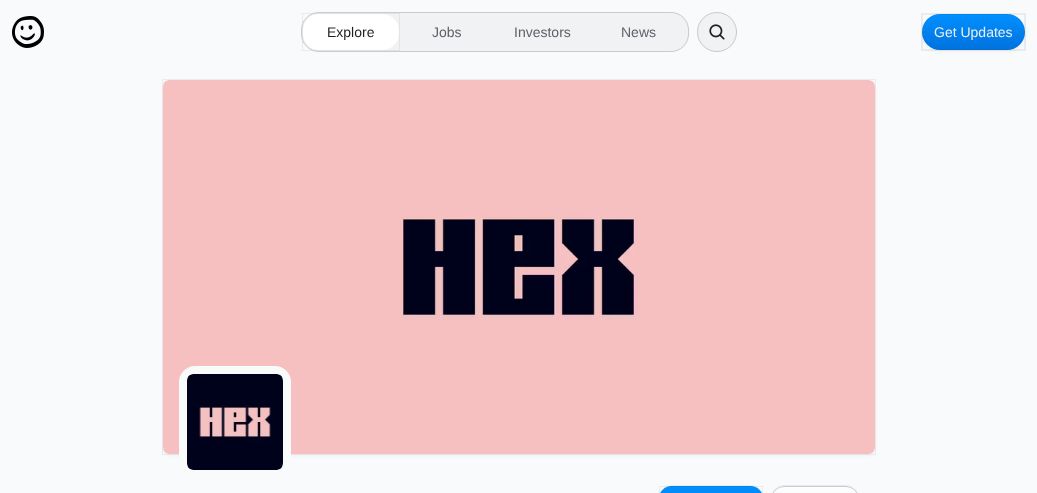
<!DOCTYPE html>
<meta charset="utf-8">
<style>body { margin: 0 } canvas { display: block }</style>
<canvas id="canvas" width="1037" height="493"></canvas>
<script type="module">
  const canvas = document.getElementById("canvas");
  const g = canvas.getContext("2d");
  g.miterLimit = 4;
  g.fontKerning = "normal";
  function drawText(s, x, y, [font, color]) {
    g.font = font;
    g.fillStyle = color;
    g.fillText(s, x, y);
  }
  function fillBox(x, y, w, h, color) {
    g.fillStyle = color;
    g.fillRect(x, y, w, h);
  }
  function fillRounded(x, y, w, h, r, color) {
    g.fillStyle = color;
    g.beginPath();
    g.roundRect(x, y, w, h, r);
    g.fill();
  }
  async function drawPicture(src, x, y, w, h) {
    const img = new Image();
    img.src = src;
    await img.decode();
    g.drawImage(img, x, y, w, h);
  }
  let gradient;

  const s1 = ["14px Liberation Sans", "#1C2024"];
  const s2 = ["14px Liberation Sans", "#5C6268"];
  const s3 = ["14px Liberation Sans", "#EDEEF0"];

  fillBox(0, 0, 1037, 493, "#F9FAFB");
  await drawPicture("pic1.png", 12, 16, 32, 32);
  fillRounded(301, 12, 388, 40, 18, "#F0F2F4");
  g.strokeStyle = "rgba(0, 0, 0, 0.06)";
  g.strokeRect(302.5, 13.5, 97, 37);
  g.fillStyle = "#FFFFFF";
  g.beginPath();
  g.roundRect(303.5, 14.5, 95, 35, 15.5);
  g.fill();
  g.strokeStyle = "#FFFFFF";
  g.stroke();
  g.beginPath();
  g.roundRect(301.5, 12.5, 387, 39, 17.5);
  g.strokeStyle = "#C6CCD2";
  g.stroke();
  drawText("Explore", 327, 37, s1);
  drawText("Jobs", 432, 37, s2);
  drawText("Investors", 514, 37, s2);
  drawText("News", 621, 37, s2);
  g.fillStyle = "#F0F2F4";
  g.beginPath();
  g.arc(717, 32, 20, 0, Math.PI * 2);
  g.fill();
  await drawPicture("pic2.png", 709, 24, 16, 16);
  g.beginPath();
  g.arc(717, 32, 19.5, 0, Math.PI * 2);
  g.stroke();
  g.fillStyle = "rgba(0, 0, 0, 0.04)";
  g.filter = "blur(2px)";
  g.beginPath();
  g.roundRect(922, 16, 103, 36, 18);
  g.fill();
  g.filter = "none";
  g.strokeStyle = "rgba(0, 0, 0, 0.06)";
  g.strokeRect(921.5, 13.5, 104, 37);
  gradient = g.createLinearGradient(974, 14, 974, 50);
  gradient.addColorStop(0, "#0190FF");
  gradient.addColorStop(1, "#0072DE");
  g.fillStyle = gradient;
  g.beginPath();
  g.roundRect(922, 14, 103, 36, 18);
  g.fill();
  g.strokeRect(922.5, 14.5, 102, 35);
  drawText("Get Updates", 934, 37, s3);
  g.fillStyle = "rgba(0, 0, 0, 0.04)";
  g.filter = "blur(2px)";
  g.beginPath();
  g.roundRect(163, 82, 712, 374, 8);
  g.fill();
  g.filter = "none";
  g.strokeRect(162.5, 79.5, 713, 375);
  await drawPicture("pic3.png", 163, 80, 712, 374);
  g.filter = "blur(2px)";
  g.beginPath();
  g.roundRect(187, 376, 96, 96, 8);
  g.fill();
  g.filter = "none";
  g.strokeRect(186.5, 373.5, 97, 97);
  g.beginPath();
  g.roundRect(183, 370, 104, 104, 12);
  g.strokeStyle = "#F9FAFA";
  g.lineWidth = 8;
  g.stroke();
  await drawPicture("pic4.png", 187, 374, 96, 96);
  g.beginPath();
  g.roundRect(658.5, 485.5, 105, 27, 18.5);
  g.strokeStyle = "#E9EAEB";
  g.lineWidth = 1;
  g.stroke();
  gradient = g.createLinearGradient(711, 486, 711, 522);
  gradient.addColorStop(0, "#0190FF");
  gradient.addColorStop(1, "#0072DE");
  g.fillStyle = gradient;
  g.beginPath();
  g.roundRect(659, 486, 104, 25, 18);
  g.fill();
  g.strokeStyle = "rgba(0, 0, 0, 0.06)";
  g.strokeRect(659.5, 486.5, 103, 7);
  g.beginPath();
  g.roundRect(770.5, 485.5, 89, 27, 18.5);
  g.strokeStyle = "#E9EAEB";
  g.stroke();
  gradient = g.createLinearGradient(815, 486, 815, 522);
  gradient.addColorStop(0, "#FFFFFF");
  gradient.addColorStop(1, "#EBEEF0");
  g.fillStyle = gradient;
  g.beginPath();
  g.roundRect(771, 486, 88, 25, 18);
  g.fill();
  g.beginPath();
  g.roundRect(771.5, 486.5, 87, 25, 17.5);
  g.strokeStyle = "#C6CCD2";
  g.stroke();
</script>
